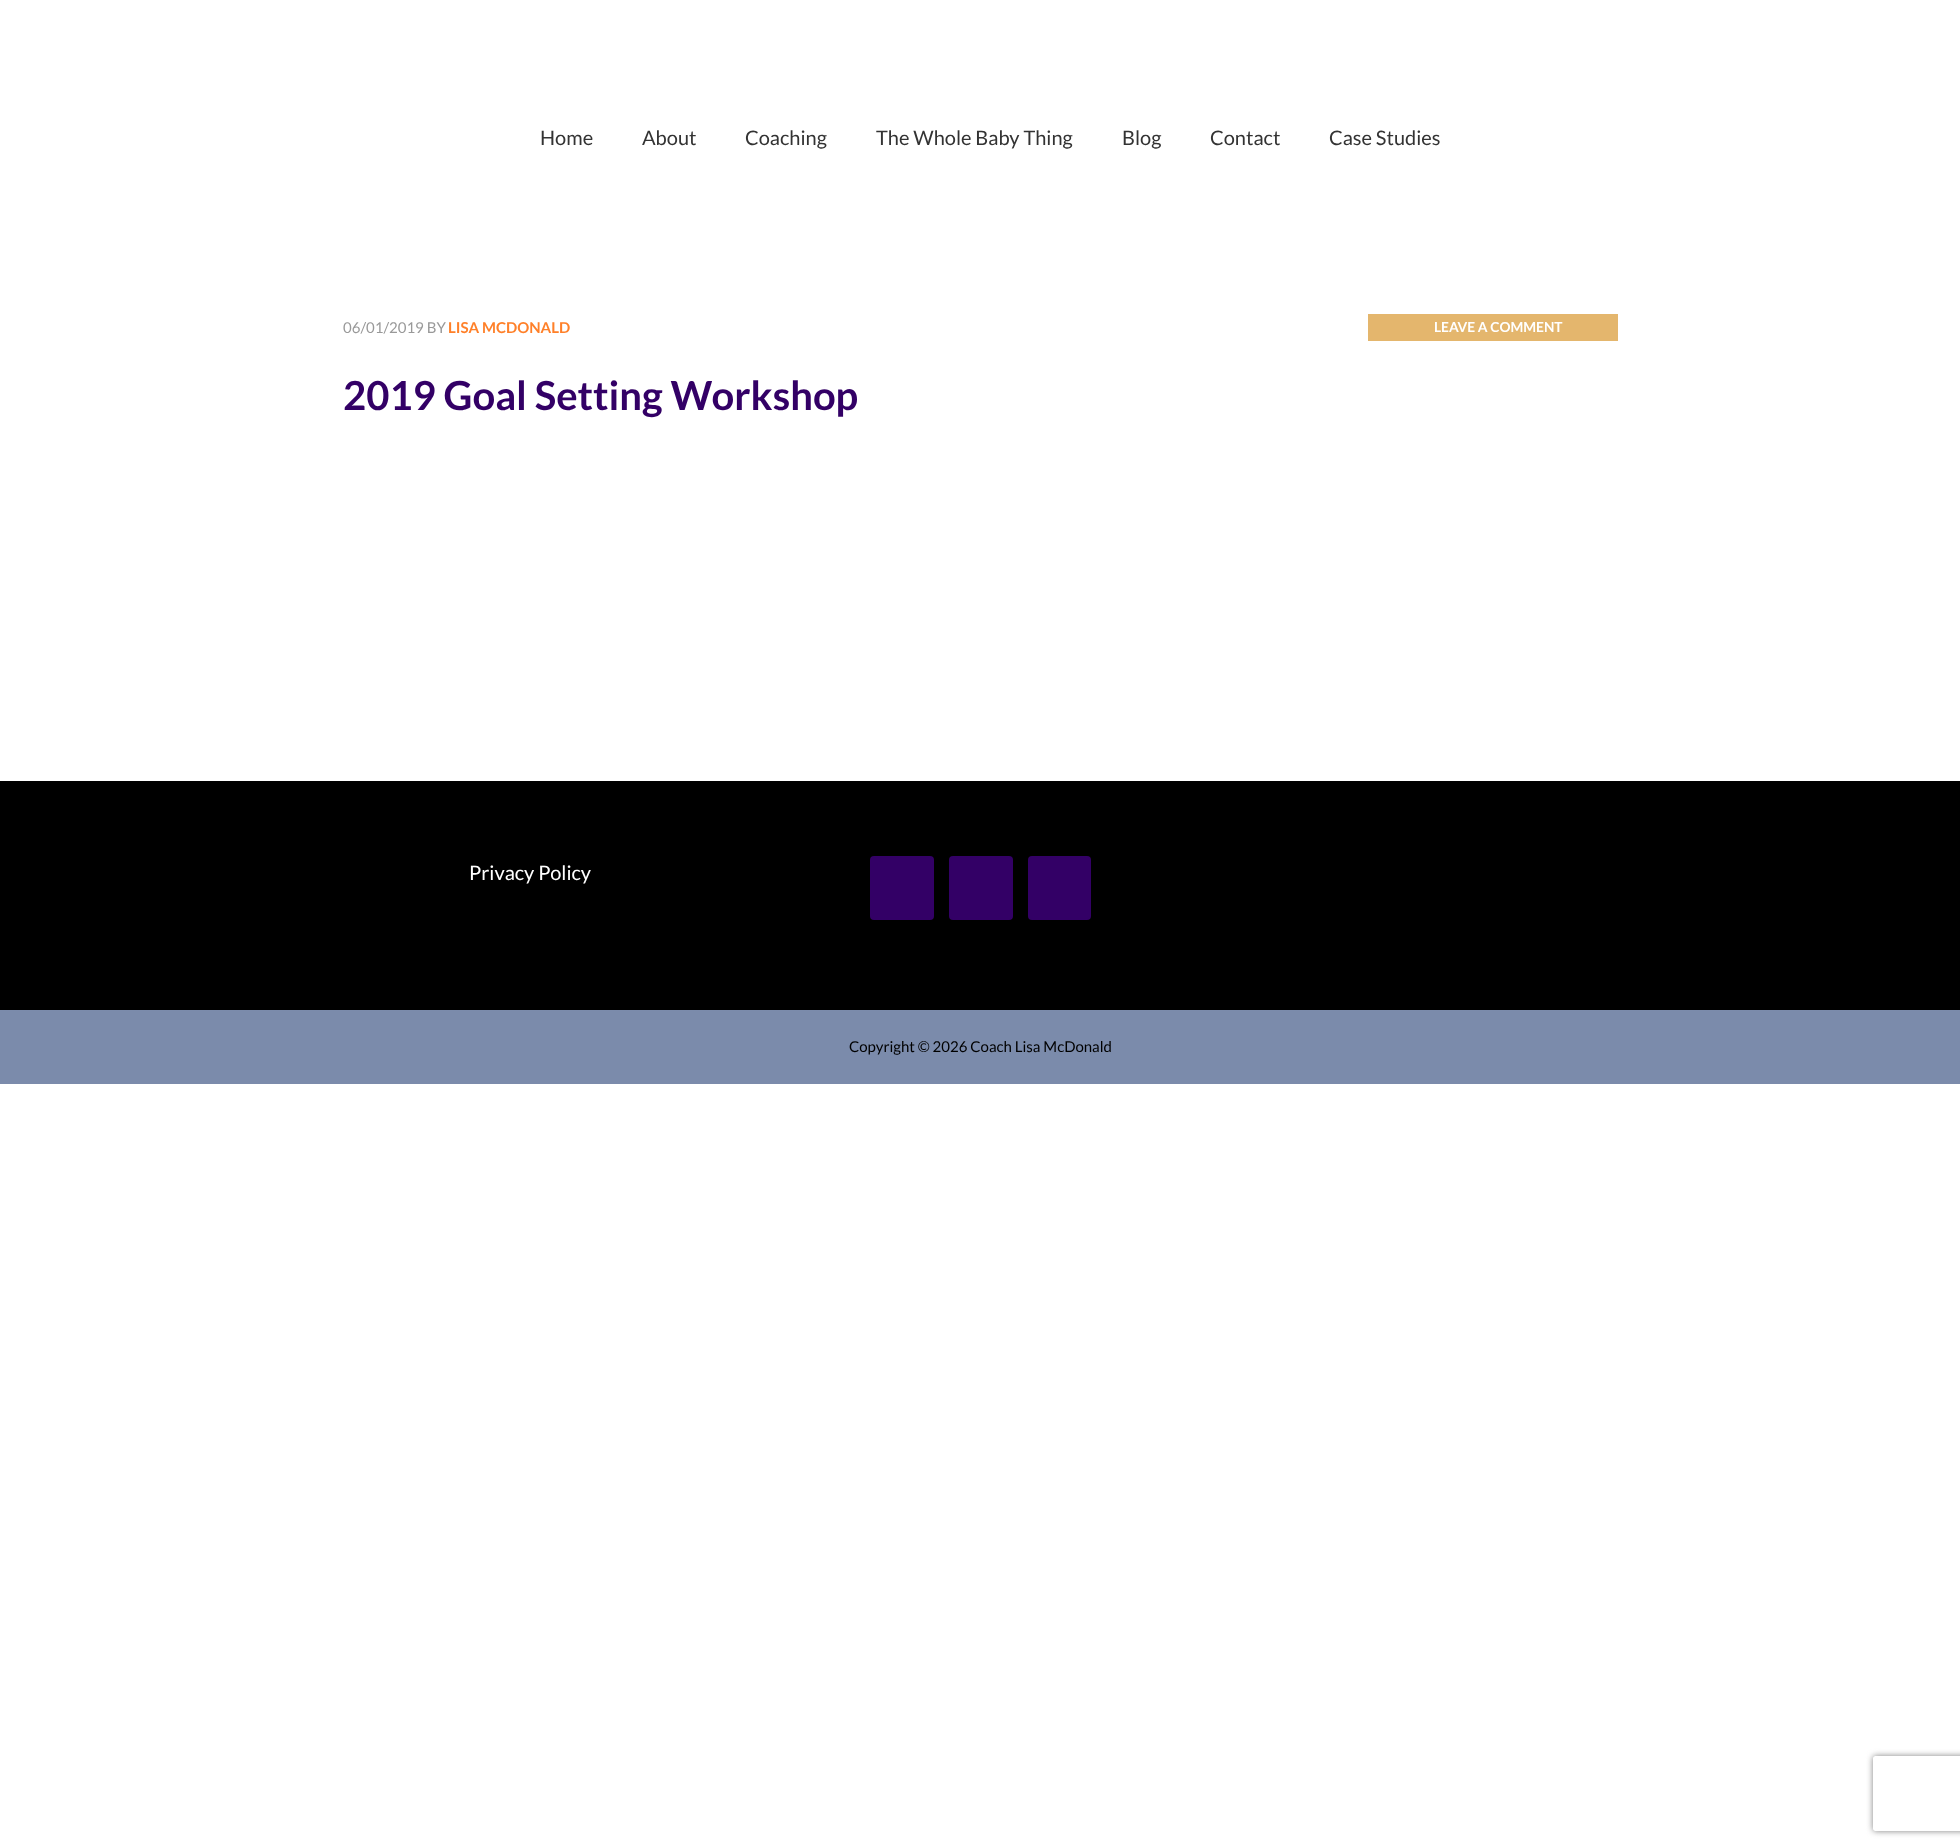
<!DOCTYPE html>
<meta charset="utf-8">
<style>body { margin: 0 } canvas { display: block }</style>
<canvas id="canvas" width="1960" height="1848"></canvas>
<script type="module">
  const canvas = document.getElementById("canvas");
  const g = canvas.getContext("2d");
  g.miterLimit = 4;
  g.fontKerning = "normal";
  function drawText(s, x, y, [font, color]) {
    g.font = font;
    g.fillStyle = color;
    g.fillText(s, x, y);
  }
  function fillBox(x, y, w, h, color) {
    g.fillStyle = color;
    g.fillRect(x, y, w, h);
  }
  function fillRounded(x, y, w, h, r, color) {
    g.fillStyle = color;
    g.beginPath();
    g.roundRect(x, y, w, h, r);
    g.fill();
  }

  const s1 = ["20px Lato", "#333333"];
  const s2 = ["15px Lato", "#999999"];
  const s3 = ["bold 15px Lato", "#FF8029"];
  const s4 = ["bold 13.75px Lato", "#FFFFFF"];
  const s5 = ["bold 40px Lato", "#330066"];
  const s6 = ["20px Lato", "#FFFFFF"];
  const s7 = ["15px Lato", "#000000"];

  fillBox(0, 0, 1960, 1848, "#FFFFFF");
  drawText("Home", 540, 145, s1);
  drawText("About", 642, 145, s1);
  drawText("Coaching", 745, 145, s1);
  drawText("The Whole Baby Thing", 876, 145, s1);
  drawText("Blog", 1122, 145, s1);
  drawText("Contact", 1210, 145, s1);
  drawText("Case Studies", 1329, 145, s1);
  drawText("06/01/2019 BY", 343, 333, s2);
  drawText("LISA MCDONALD", 448, 333, s3);
  fillBox(1368, 314, 250, 27, "#E4B66D");
  drawText("LEAVE A COMMENT", 1434, 332, s4);
  drawText("2019 Goal Setting Workshop", 343, 410, s5);
  fillBox(0, 781, 1960, 229, "#000000");
  drawText("Privacy Policy", 469, 880, s6);
  fillRounded(870, 856, 64, 64, 4, "#330066");
  fillRounded(949, 856, 64, 64, 4, "#330066");
  fillRounded(1028, 856, 63, 64, 4, "#330066");
  fillBox(0, 1010, 1960, 74, "#7B8BAB");
  drawText("Copyright © 2026 Coach Lisa McDonald", 849, 1052, s7);
  g.save();
  g.beginPath();
  g.moveTo(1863, 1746);
  g.lineTo(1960, 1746);
  g.lineTo(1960, 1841);
  g.lineTo(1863, 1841);
  g.closePath();
  g.moveTo(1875.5, 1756);
  g.lineTo(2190.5, 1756);
  g.bezierCurveTo(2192, 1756, 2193, 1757, 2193, 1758.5);
  g.lineTo(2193, 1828.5);
  g.bezierCurveTo(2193, 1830, 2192, 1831, 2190.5, 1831);
  g.lineTo(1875.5, 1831);
  g.bezierCurveTo(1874, 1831, 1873, 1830, 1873, 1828.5);
  g.lineTo(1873, 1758.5);
  g.bezierCurveTo(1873, 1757, 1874, 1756, 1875.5, 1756);
  g.closePath();
  g.clip("evenodd");
  g.fillStyle = "#808080";
  g.filter = "blur(3px)";
  g.beginPath();
  g.roundRect(1873, 1756, 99, 75, 2.5);
  g.fill();
  g.filter = "none";
  g.restore();
</script>
